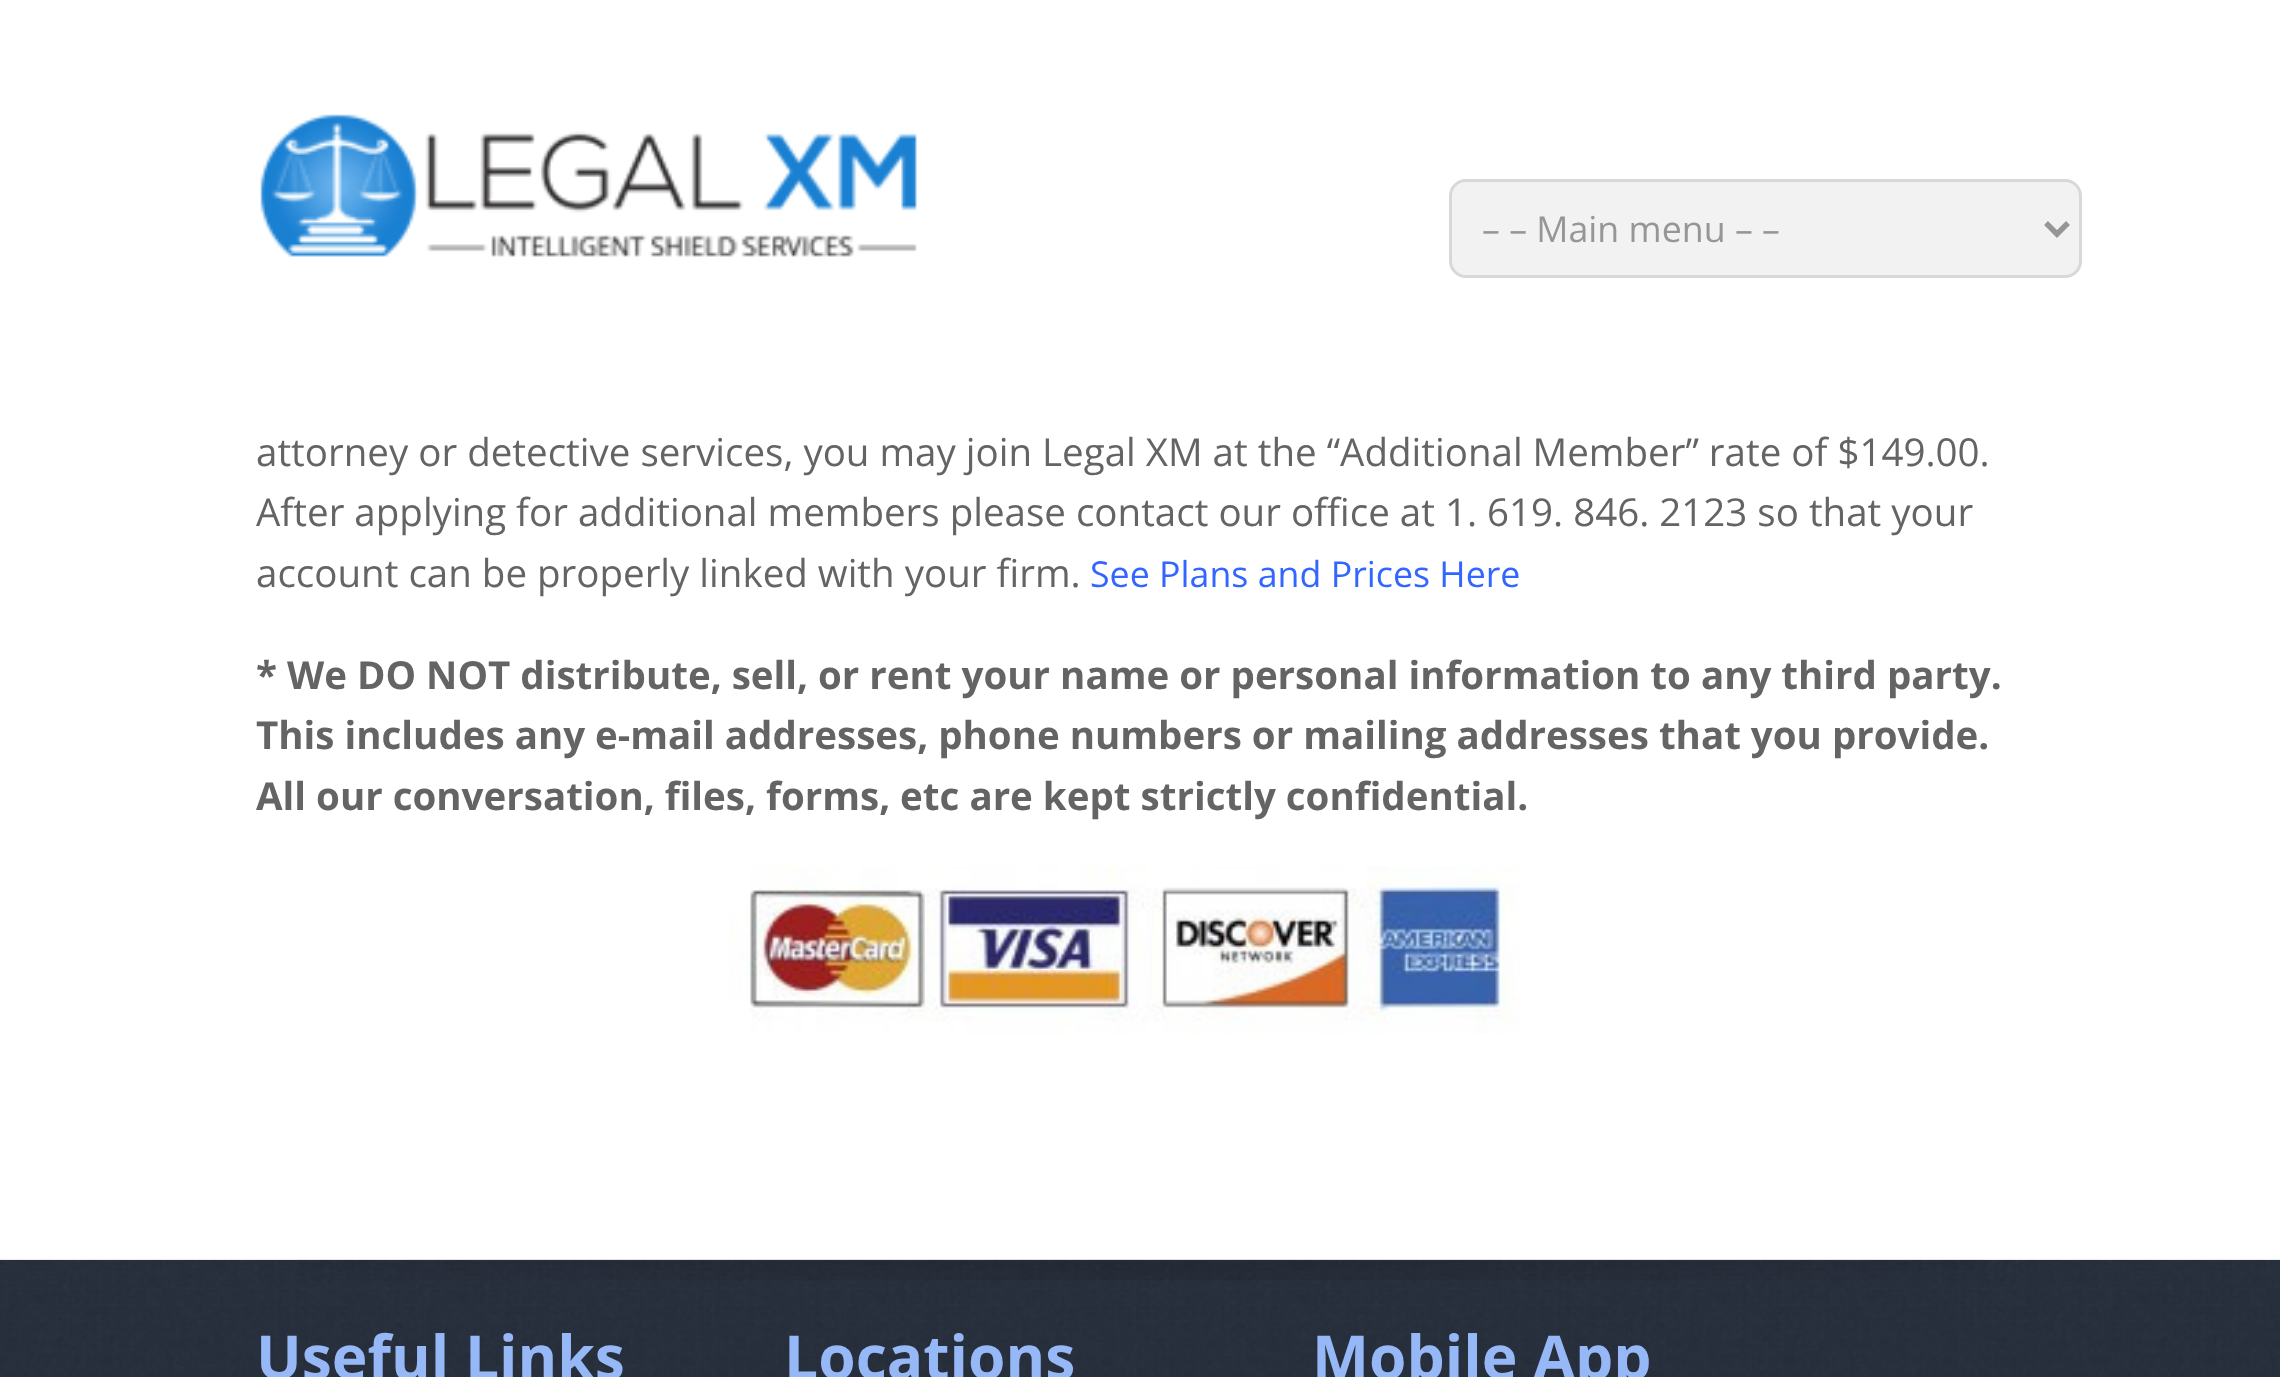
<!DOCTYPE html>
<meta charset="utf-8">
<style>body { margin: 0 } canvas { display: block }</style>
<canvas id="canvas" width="2280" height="1377"></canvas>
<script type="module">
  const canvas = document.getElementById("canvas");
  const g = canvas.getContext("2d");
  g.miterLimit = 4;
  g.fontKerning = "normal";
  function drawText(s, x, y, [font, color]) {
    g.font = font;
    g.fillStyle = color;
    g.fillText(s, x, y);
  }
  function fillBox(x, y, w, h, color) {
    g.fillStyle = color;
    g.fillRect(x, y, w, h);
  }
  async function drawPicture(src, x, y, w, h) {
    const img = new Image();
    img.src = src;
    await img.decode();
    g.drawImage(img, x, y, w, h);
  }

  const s1 = ["35.75px Open Sans", "#969696"];
  const s2 = ["38.5px Open Sans", "#646464"];
  const s3 = ["35.75px Open Sans", "#3366FF"];
  const s4 = ["bold 38.5px Open Sans", "#646464"];
  const s5 = ["bold 60.5px Open Sans", "#96B8F6"];

  fillBox(0, 0, 2280, 1377, "#FFFFFF");
  await drawPicture("pic1.png", 260, 114, 657, 143);
  g.fillStyle = "#F2F2F2";
  g.beginPath();
  g.roundRect(1450.5, 180.5, 630, 96, 15.5);
  g.fill();
  g.strokeStyle = "#D8D8D8";
  g.lineWidth = 3;
  g.stroke();
  g.beginPath();
  g.moveTo(2046, 223);
  g.lineTo(2057, 234);
  g.lineTo(2068, 223);
  g.strokeStyle = "#969696";
  g.lineWidth = 5.5;
  g.stroke();
  drawText("– – Main menu – –", 1482, 242, s1);
  drawText("attorney or detective services, you may join Legal XM at the “Additional Member” rate of $149.00.", 256, 466, s2);
  drawText("After applying for additional members please contact our office at 1. 619. 846. 2123 so that your", 256, 526, s2);
  drawText("account can be properly linked with your firm.", 256, 587, s2);
  drawText("See Plans and Prices Here", 1090, 587, s3);
  drawText("* We DO NOT distribute, sell, or rent your name or personal information to any third party.", 256, 689, s4);
  drawText("This includes any e-mail addresses, phone numbers or mailing addresses that you provide.", 256, 749, s4);
  drawText("All our conversation, files, forms, etc are kept strictly confidential.", 256, 810, s4);
  await drawPicture("pic2.png", 729, 866, 791, 168);
  fillBox(0, 1260, 2280, 117, "#252E3E");
  await drawPicture("pic3.png", 0, 1259, 2280, 118);
  await drawPicture("pic4.png", 297, 1259, 1689, 21);
  drawText("Useful Links", 256, 1379, s5);
  drawText("Locations", 784, 1379, s5);
  drawText("Mobile App", 1312, 1379, s5);
</script>
